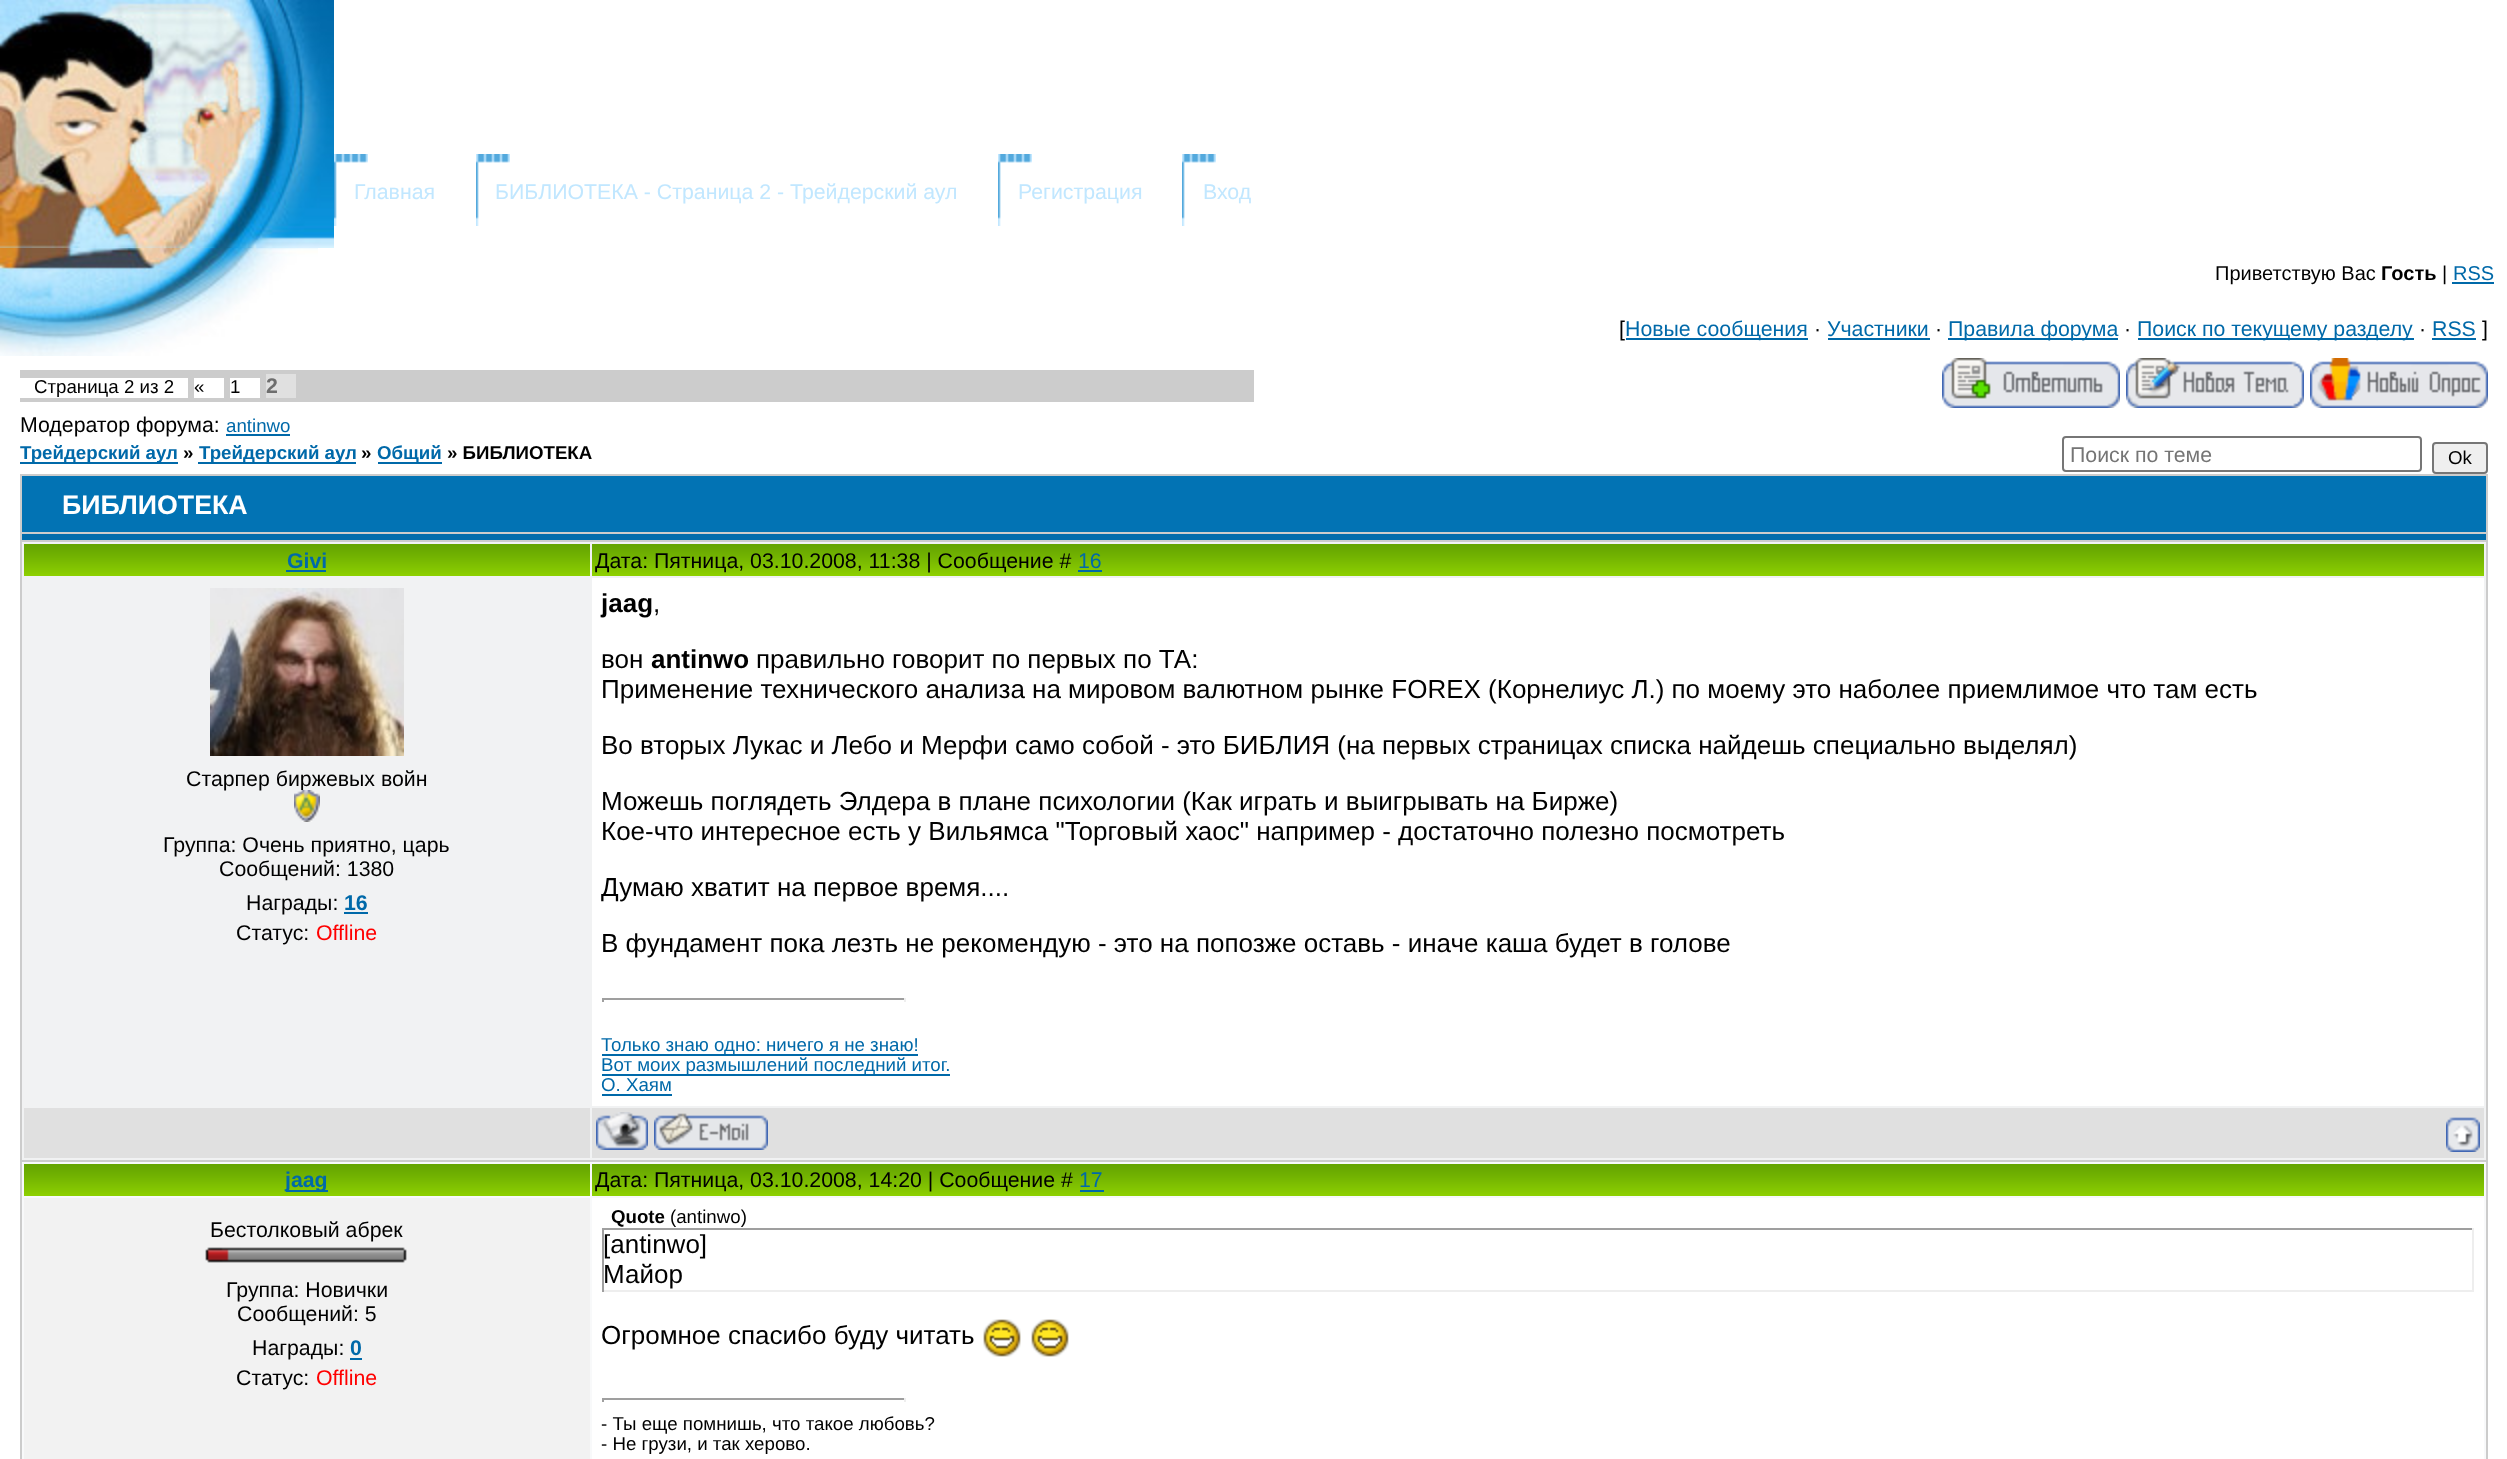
<!DOCTYPE html>
<meta charset="utf-8">
<style>body { margin: 0 } canvas { display: block }</style>
<canvas id="canvas" width="2507" height="1459"></canvas>
<script type="module">
  const canvas = document.getElementById("canvas");
  const g = canvas.getContext("2d");
  g.miterLimit = 4;
  g.fontKerning = "normal";
  function drawText(s, x, y, [font, color]) {
    g.font = font;
    g.fillStyle = color;
    g.fillText(s, x, y);
  }
  function fillBox(x, y, w, h, color) {
    g.fillStyle = color;
    g.fillRect(x, y, w, h);
  }
  async function drawPicture(src, x, y, w, h) {
    const img = new Image();
    img.src = src;
    await img.decode();
    g.drawImage(img, x, y, w, h);
  }

  const s1 = ["21.3px Liberation Sans", "#C1E7FF"];
  const s2 = ["20px Liberation Sans", "#000000"];
  const s3 = ["bold 20px Liberation Sans", "#000000"];
  const s4 = ["20px Liberation Sans", "#0069A9"];
  const s5 = ["21.3px Liberation Sans", "#000000"];
  const s6 = ["21.3px Liberation Sans", "#0069A9"];
  const s7 = ["18.7px Liberation Sans", "#000000"];
  const s8 = ["bold 21.3px Liberation Sans", "#6E6E6E"];
  const s9 = ["18.7px Liberation Sans", "#0069A9"];
  const s10 = ["bold 18.7px Liberation Sans", "#0069A9"];
  const s11 = ["bold 18.7px Liberation Sans", "#000000"];
  const s12 = ["21.3px Liberation Sans", "#757575"];
  const s13 = ["bold 26.75px Liberation Sans", "#FFFFFF"];
  const s14 = ["bold 21.3px Liberation Sans", "#0069A9"];
  const s15 = ["21.3px Liberation Sans", "#FF0000"];
  const s16 = ["bold 26px Liberation Sans", "#000000"];
  const s17 = ["26px Liberation Sans", "#000000"];

  fillBox(0, 0, 2507, 1459, "#FFFFFF");
  await drawPicture("pic1.png", 0, 248, 318, 108);
  await drawPicture("pic2.png", 0, 0, 334, 248);
  await drawPicture("pic3.png", 334, 154, 34, 72);
  drawText("Главная", 354, 199, s1);
  await drawPicture("pic3.png", 476, 154, 34, 72);
  drawText("БИБЛИОТЕКА - Страница 2 - Трейдерский аул", 495, 199, s1);
  await drawPicture("pic3.png", 998, 154, 34, 72);
  drawText("Регистрация", 1018, 199, s1);
  await drawPicture("pic3.png", 1182, 154, 34, 72);
  drawText("Вход", 1203, 199, s1);
  drawText("Приветствую Вас", 2215, 280, s2);
  drawText("Гость", 2381, 280, s3);
  drawText("|", 2442, 280, s2);
  drawText("RSS", 2453, 280, s4);
  fillBox(2452, 282, 42, 2, "#0069A9");
  drawText("[", 1619, 336, s5);
  fillBox(1626, 338, 182, 2, "#0069A9");
  drawText("Новые сообщения", 1625, 336, s6);
  drawText("·", 1814, 336, s5);
  drawText("Участники", 1827, 336, s6);
  fillBox(1828, 338, 102, 2, "#0069A9");
  drawText("·", 1935, 336, s5);
  fillBox(1948, 338, 170, 2, "#0069A9");
  drawText("Правила форума", 1948, 336, s6);
  drawText("·", 2124, 336, s5);
  fillBox(2138, 338, 276, 2, "#0069A9");
  drawText("Поиск по текущему разделу", 2137, 336, s6);
  drawText("·", 2419, 336, s5);
  drawText("RSS", 2432, 336, s6);
  fillBox(2432, 338, 44, 2, "#0069A9");
  drawText("]", 2482, 336, s5);
  fillBox(20, 370, 1234, 32, "#CCCCCC");
  fillBox(20, 378, 168, 20, "#FFFFFF");
  drawText("Страница 2 из 2", 34, 393, s7);
  fillBox(194, 378, 30, 20, "#FFFFFF");
  drawText("«", 194, 393, s7);
  fillBox(230, 378, 30, 20, "#FFFFFF");
  drawText("1", 230, 393, s7);
  fillBox(266, 374, 30, 24, "#E0E0E0");
  drawText("2", 266, 393, s8);
  await drawPicture("pic4.png", 1942, 358, 178, 50);
  await drawPicture("pic5.png", 2126, 358, 178, 50);
  await drawPicture("pic6.png", 2310, 358, 178, 50);
  drawText("Модератор форума:", 20, 432, s5);
  drawText("antinwo", 226, 432, s9);
  fillBox(226, 434, 64, 2, "#0069A9");
  fillBox(20, 462, 158, 2, "#0069A9");
  drawText("Трейдерский аул", 20, 459, s10);
  drawText("»", 183, 459, s11);
  fillBox(198, 462, 158, 2, "#0069A9");
  drawText("Трейдерский аул", 199, 459, s10);
  drawText("»", 361, 459, s11);
  fillBox(378, 462, 64, 2, "#0069A9");
  drawText("Общий", 377, 459, s10);
  drawText("» БИБЛИОТЕКА", 447, 459, s11);
  g.beginPath();
  g.roundRect(2063, 437, 358, 34, 3);
  g.strokeStyle = "#767676";
  g.lineWidth = 2;
  g.stroke();
  drawText("Поиск по теме", 2070, 462, s12);
  g.fillStyle = "#EFEFEF";
  g.beginPath();
  g.roundRect(2433, 443, 54, 30, 3);
  g.fill();
  g.stroke();
  drawText("Ok", 2448, 464, s7);
  fillBox(20, 474, 2468, 985, "#CCCCCC");
  fillBox(22, 476, 2464, 56, "#0273B4");
  drawText("БИБЛИОТЕКА", 62, 514, s13);
  fillBox(22, 534, 2464, 6, "#016CAC");
  fillBox(22, 542, 2464, 618, "#F1F2F3");
  await drawPicture("pic7.png", 24, 544, 566, 32);
  drawText("Givi", 287, 568, s14);
  fillBox(286, 570, 40, 2, "#0069A9");
  await drawPicture("pic8.png", 592, 544, 1892, 32);
  drawText("Дата: Пятница, 03.10.2008, 11:38 | Сообщение #", 595, 568, s5);
  drawText("16", 1078, 568, s6);
  fillBox(1078, 570, 24, 2, "#0069A9");
  await drawPicture("pic9.png", 210, 588, 194, 168);
  drawText("Старпер биржевых войн", 186, 786, s5);
  await drawPicture("pic10.png", 294, 790, 26, 32);
  drawText("Группа: Очень приятно, царь", 163, 852, s5);
  drawText("Сообщений: 1380", 219, 876, s5);
  drawText("Награды:", 246, 910, s5);
  drawText("16", 344, 910, s14);
  fillBox(344, 912, 24, 2, "#0069A9");
  drawText("Статус:", 236, 940, s5);
  drawText("Offline", 316, 940, s15);
  fillBox(592, 578, 1892, 528, "#FFFFFF");
  drawText("jaag", 601, 612, s16);
  drawText(",", 653, 612, s17);
  drawText("вон", 601, 668, s17);
  drawText("antinwo", 651, 668, s16);
  drawText("правильно говорит по первых по ТА:", 756, 668, s17);
  drawText("Применение технического анализа на мировом валютном рынке FOREX (Корнелиус Л.) по моему это наболее приемлимое что там есть", 601, 698, s17);
  drawText("Во вторых Лукас и Лебо и Мерфи само собой - это БИБЛИЯ (на первых страницах списка найдешь специально выделял)", 601, 754, s17);
  drawText("Можешь поглядеть Элдера в плане психологии (Как играть и выигрывать на Бирже)", 601, 810, s17);
  drawText("Кое-что интересное есть у Вильямса \"Торговый хаос\" например - достаточно полезно посмотреть", 601, 840, s17);
  drawText("Думаю хватит на первое время....", 601, 896, s17);
  drawText("В фундамент пока лезть не рекомендую - это на попозже оставь - иначе каша будет в голове", 601, 952, s17);
  fillBox(602, 998, 304, 2, "#9F9F9F");
  fillBox(904, 998, 2, 4, "#EEEEEE");
  fillBox(602, 998, 2, 4, "#9F9F9F");
  fillBox(602, 1054, 316, 2, "#0069A9");
  drawText("Только знаю одно: ничего я не знаю!", 601, 1051, s9);
  fillBox(602, 1074, 348, 2, "#0069A9");
  drawText("Вот моих размышлений последний итог.", 601, 1071, s9);
  drawText("О. Хаям", 601, 1091, s9);
  fillBox(602, 1094, 70, 2, "#0069A9");
  fillBox(24, 1108, 566, 50, "#E0E0E0");
  fillBox(592, 1108, 1892, 50, "#E0E0E0");
  await drawPicture("pic11.png", 596, 1112, 52, 38);
  await drawPicture("pic12.png", 654, 1113, 114, 37);
  await drawPicture("pic13.png", 2446, 1117, 34, 35);
  fillBox(22, 1162, 2464, 297, "#F8F9FA");
  await drawPicture("pic7.png", 24, 1164, 566, 32);
  fillBox(286, 1190, 42, 2, "#0069A9");
  drawText("jaag", 285, 1187, s14);
  await drawPicture("pic8.png", 592, 1164, 1892, 32);
  drawText("Дата: Пятница, 03.10.2008, 14:20 | Сообщение #", 595, 1187, s5);
  drawText("17", 1079, 1187, s6);
  fillBox(1080, 1190, 24, 2, "#0069A9");
  fillBox(24, 1198, 566, 261, "#F2F2F2");
  drawText("Бестолковый абрек", 210, 1237, s5);
  await drawPicture("pic14.png", 205, 1247, 202, 16);
  drawText("Группа: Новички", 226, 1297, s5);
  drawText("Сообщений: 5", 237, 1321, s5);
  drawText("Награды:", 252, 1355, s5);
  drawText("0", 350, 1355, s14);
  fillBox(350, 1358, 12, 2, "#0069A9");
  drawText("Статус:", 236, 1385, s5);
  drawText("Offline", 316, 1385, s15);
  fillBox(592, 1198, 1892, 261, "#FFFFFF");
  drawText("Quote", 611, 1223, s11);
  drawText("(antinwo)", 670, 1223, s7);
  fillBox(602, 1228, 1872, 2, "#9F9F9F");
  fillBox(2472, 1228, 2, 64, "#EEEEEE");
  fillBox(602, 1290, 1872, 2, "#EEEEEE");
  fillBox(602, 1228, 2, 64, "#9F9F9F");
  drawText("[antinwo]", 603, 1253, s17);
  drawText("Майор", 603, 1283, s17);
  drawText("Огромное спасибо буду читать", 601, 1344, s17);
  await drawPicture("pic15.png", 983, 1319, 38, 38);
  await drawPicture("pic15.png", 1031, 1319, 38, 38);
  fillBox(602, 1398, 304, 2, "#9F9F9F");
  fillBox(904, 1398, 2, 4, "#EEEEEE");
  fillBox(602, 1398, 2, 4, "#9F9F9F");
  drawText("- Ты еще помнишь, что такое любовь?", 601, 1430, s7);
  drawText("- Не грузи, и так херово.", 601, 1450, s7);
</script>
